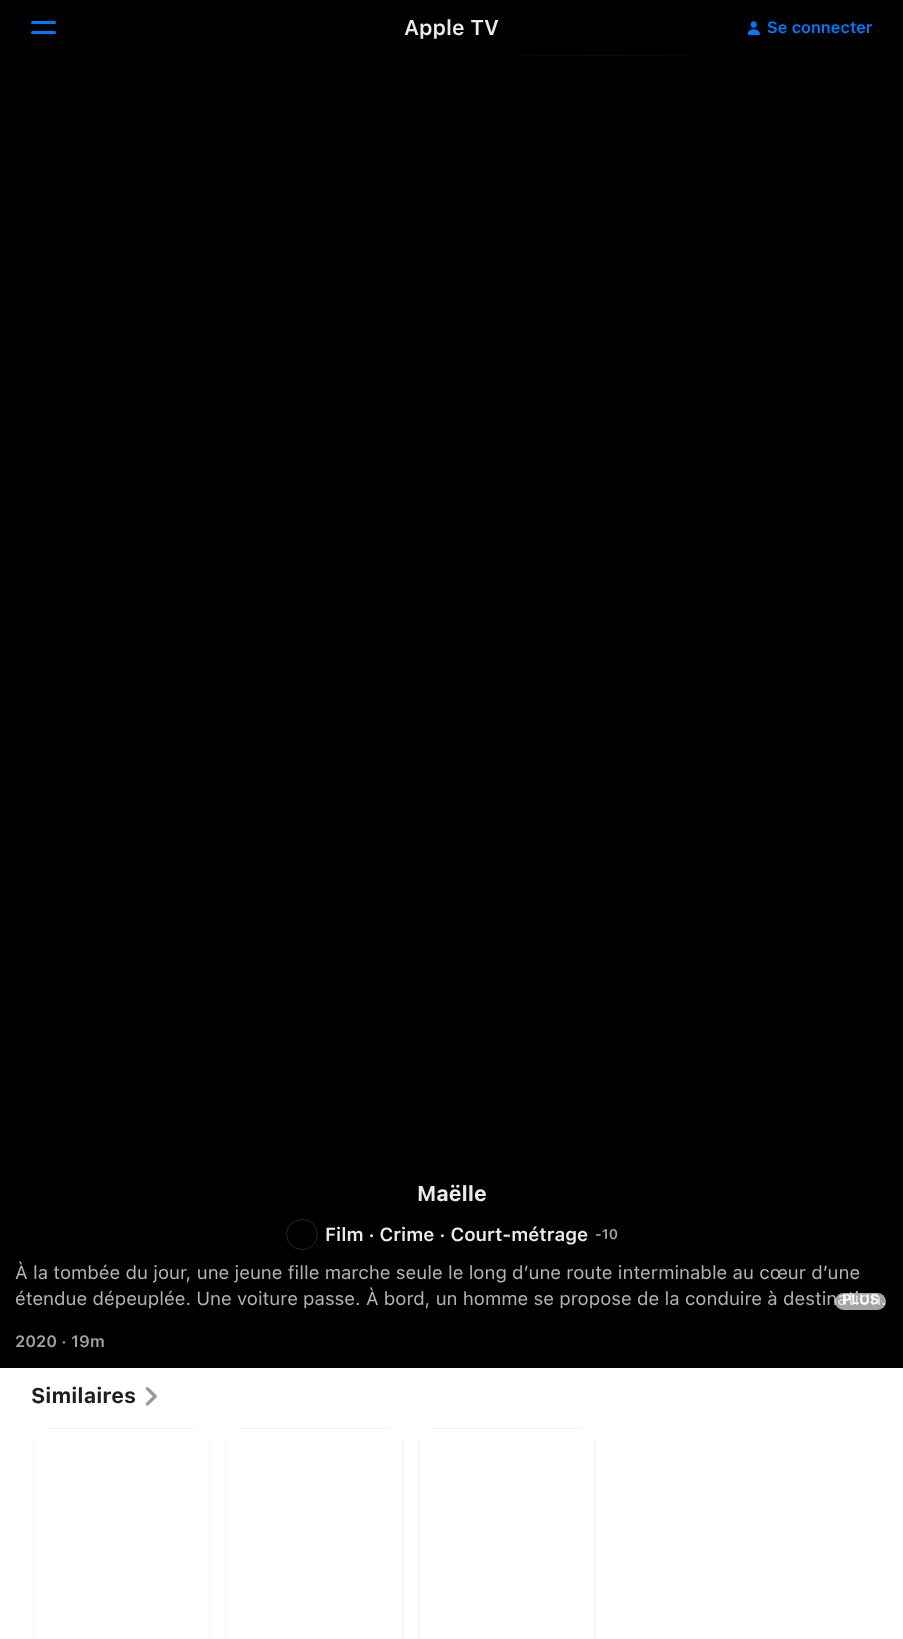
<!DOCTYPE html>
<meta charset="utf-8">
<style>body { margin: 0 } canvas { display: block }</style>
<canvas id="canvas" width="903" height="1639"></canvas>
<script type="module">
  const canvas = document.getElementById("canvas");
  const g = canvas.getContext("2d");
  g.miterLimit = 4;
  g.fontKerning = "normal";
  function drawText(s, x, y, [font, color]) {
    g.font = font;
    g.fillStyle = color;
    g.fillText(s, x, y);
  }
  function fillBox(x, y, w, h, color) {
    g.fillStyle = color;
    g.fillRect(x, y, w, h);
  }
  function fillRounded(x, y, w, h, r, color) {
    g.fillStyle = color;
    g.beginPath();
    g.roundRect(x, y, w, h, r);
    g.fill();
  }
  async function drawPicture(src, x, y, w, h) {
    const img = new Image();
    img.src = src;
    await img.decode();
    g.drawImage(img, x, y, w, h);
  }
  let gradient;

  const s1 = ["600 21.25px SF", "#EBEBEB"];
  const s2 = ["600 16.25px SF", "#007AFF"];
  const s3 = ["bold 21.25px SF", "#EBEBEB"];
  const s4 = ["600 18.75px SF", "#EBEBEB"];
  const s5 = ["600 14px SF", "#A3A3A3"];
  const s6 = ["18.75px SF", "#B3B3B3"];
  const s7 = ["600 14px SF", "#FFFFFF"];
  const s8 = ["600 16.25px SF", "#A3A3A3"];
  const s9 = ["bold 21.25px SF", "#1F1F1F"];

  fillBox(0, 0, 903, 1639, "#FFFFFF");
  fillBox(0, 0, 903, 55, "#000000");
  fillRounded(31, 21, 25, 3, 1.5, "#007AFF");
  fillRounded(31, 31, 25, 3, 1.5, "#007AFF");
  drawText("Apple TV", 404, 35, s1);
  await drawPicture("pic1.png", 748, 21, 12, 14);
  drawText("Se connecter", 767, 33, s2);
  fillBox(479, 56, 249, 123, "#000000");
  g.save();
  g.beginPath();
  g.rect(0, 55, 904, 1313);
  g.clip();
  g.strokeStyle = "#0D0D0D";
  g.strokeRect(0.5, 55.5, 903, 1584);
  g.restore();
  gradient = g.createRadialGradient(603, 55, 0, 603, 55, 125);
  gradient.addColorStop(0, "rgba(0, 0, 0, 0)");
  gradient.addColorStop(0.19, "rgba(0, 0, 0, 0.04)");
  gradient.addColorStop(0.36, "rgba(0, 0, 0, 0.15)");
  gradient.addColorStop(0.51, "rgba(0, 0, 0, 0.3)");
  gradient.addColorStop(0.53, "rgba(0, 0, 0, 0.33)");
  gradient.addColorStop(0.65, "rgba(0, 0, 0, 0.49)");
  gradient.addColorStop(0.77, "rgba(0, 0, 0, 0.67)");
  gradient.addColorStop(0.89, "rgba(0, 0, 0, 0.85)");
  gradient.addColorStop(1, "#000000");
  g.fillStyle = gradient;
  g.fillRect(0, 55, 903, 1313);
  drawText("Maëlle", 417, 1201, s3);
  g.beginPath();
  g.roundRect(286.5, 1219.5, 31, 30, 15);
  g.strokeStyle = "#292929";
  g.stroke();
  drawText("Film · Crime · Court-métrage", 325, 1241, s4);
  drawText("-10", 595, 1239, s5);
  drawText("À la tombée du jour, une jeune fille marche seule le long d’une route interminable au cœur d’une", 15, 1279, s6);
  drawText("étendue dépeuplée. Une voiture passe. À bord, un homme se propose de la conduire à destination.", 15, 1305, s6);
  fillRounded(835, 1293, 51, 17, 8.5, "rgba(255, 255, 255, 0.64)");
  drawText("PLUS", 842, 1304, s7);
  drawText("2020 · 19m", 15, 1347, s8);
  drawText("Similaires", 31, 1403, s9);
  await drawPicture("pic2.png", 145, 1387, 12, 19);
  g.fillStyle = "#F2F2F2";
  g.beginPath();
  g.moveTo(33, 1444);
  g.lineTo(33, 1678);
  g.lineTo(34, 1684);
  g.lineTo(34, 1438);
  g.closePath();
  g.moveTo(49, 1428);
  g.lineTo(43, 1429);
  g.lineTo(200, 1429);
  g.lineTo(194, 1428);
  g.closePath();
  g.moveTo(210, 1444);
  g.lineTo(209, 1438);
  g.lineTo(209, 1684);
  g.lineTo(210, 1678);
  g.closePath();
  g.moveTo(194, 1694);
  g.lineTo(200, 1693);
  g.lineTo(43, 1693);
  g.lineTo(49, 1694);
  g.closePath();
  g.fill("evenodd");
  g.beginPath();
  g.moveTo(225, 1444);
  g.lineTo(225, 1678);
  g.lineTo(226, 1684);
  g.lineTo(226, 1438);
  g.closePath();
  g.moveTo(241, 1428);
  g.lineTo(235, 1429);
  g.lineTo(393, 1429);
  g.lineTo(387, 1428);
  g.closePath();
  g.moveTo(403, 1444);
  g.lineTo(402, 1438);
  g.lineTo(402, 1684);
  g.lineTo(403, 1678);
  g.closePath();
  g.moveTo(387, 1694);
  g.lineTo(393, 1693);
  g.lineTo(235, 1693);
  g.lineTo(241, 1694);
  g.closePath();
  g.fill("evenodd");
  g.beginPath();
  g.moveTo(418, 1444);
  g.lineTo(418, 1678);
  g.lineTo(419, 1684);
  g.lineTo(419, 1438);
  g.closePath();
  g.moveTo(434, 1428);
  g.lineTo(428, 1429);
  g.lineTo(585, 1429);
  g.lineTo(579, 1428);
  g.closePath();
  g.moveTo(595, 1444);
  g.lineTo(594, 1438);
  g.lineTo(594, 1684);
  g.lineTo(595, 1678);
  g.closePath();
  g.moveTo(579, 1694);
  g.lineTo(585, 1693);
  g.lineTo(428, 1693);
  g.lineTo(434, 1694);
  g.closePath();
  g.fill("evenodd");
</script>
